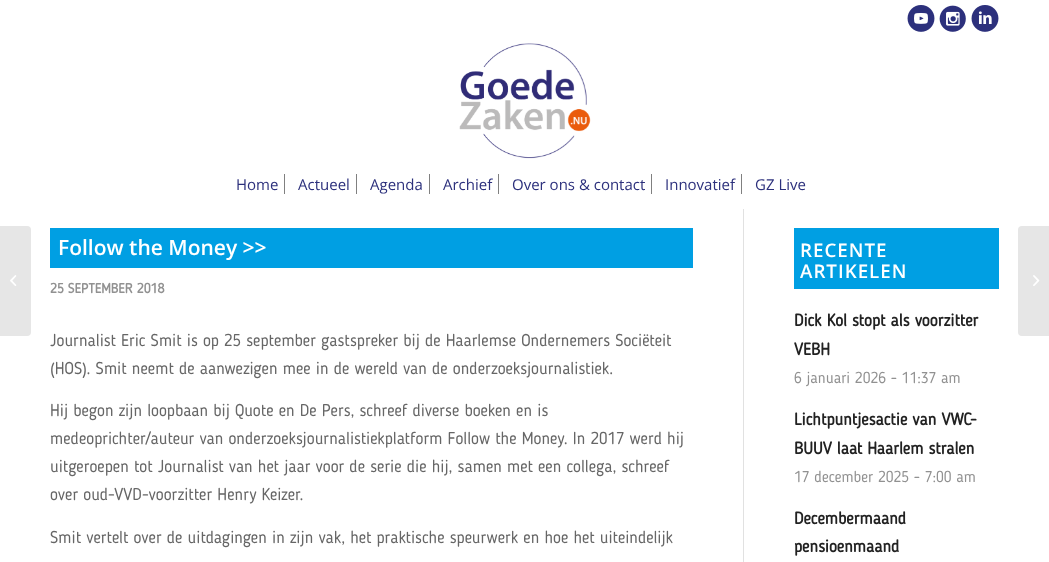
<!DOCTYPE html>
<meta charset="utf-8">
<style>body { margin: 0 } canvas { display: block }</style>
<canvas id="canvas" width="1049" height="562"></canvas>
<script type="module">
  const canvas = document.getElementById("canvas");
  const g = canvas.getContext("2d");
  g.miterLimit = 4;
  g.fontKerning = "normal";
  function drawText(s, x, y, [font, color]) {
    g.font = font;
    g.fillStyle = color;
    g.fillText(s, x, y);
  }
  function fillBox(x, y, w, h, color) {
    g.fillStyle = color;
    g.fillRect(x, y, w, h);
  }
  async function drawPicture(src, x, y, w, h) {
    const img = new Image();
    img.src = src;
    await img.decode();
    g.drawImage(img, x, y, w, h);
  }

  const s1 = ["15px Open Sans", "#2C307C"];
  const s2 = ["600 21px Open Sans", "#FFFFFF"];
  const s3 = ["bold 13.75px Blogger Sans", "#919191"];
  const s4 = ["17px Blogger Sans", "#666666"];
  const s5 = ["600 18.75px Open Sans", "#FFFFFF"];
  const s6 = ["bold 17px Blogger Sans", "#222222"];
  const s7 = ["15.6px Blogger Sans", "#919191"];

  fillBox(0, 0, 1049, 562, "#FFFFFF");
  await drawPicture("pic1.png", 907, 5, 28, 27);
  await drawPicture("pic2.png", 939, 5, 27, 27);
  await drawPicture("pic3.png", 971, 5, 28, 27);
  await drawPicture("pic4.png", 459, 43, 132, 116);
  drawText("Home", 236, 190, s1);
  drawText("Actueel", 298, 190, s1);
  fillBox(284, 174, 1, 20, "#808080");
  drawText("Agenda", 370, 190, s1);
  fillBox(356, 174, 1, 20, "#808080");
  drawText("Archief", 443, 190, s1);
  fillBox(429, 174, 1, 20, "#808080");
  drawText("Over ons & contact", 512, 190, s1);
  fillBox(498, 174, 1, 20, "#808080");
  drawText("Innovatief", 665, 190, s1);
  fillBox(651, 174, 1, 20, "#808080");
  drawText("GZ Live", 755, 190, s1);
  fillBox(741, 174, 1, 20, "#808080");
  g.fillStyle = "#E6E6E6";
  g.beginPath();
  g.roundRect(0, 226, 31, 110, [0, 4, 4, 0]);
  g.fill();
  await drawPicture("pic5.png", 10, 275, 7, 11);
  fillBox(743, 209, 1, 353, "#E1E1E1");
  fillBox(50, 228, 643, 40, "#009FE3");
  drawText("Follow the Money >>", 58, 255, s2);
  drawText("25 SEPTEMBER 2018", 50, 293, s3);
  drawText("Journalist Eric Smit is op 25 september gastspreker bij de Haarlemse Ondernemers Sociëteit", 50, 346, s4);
  drawText("(HOS). Smit neemt de aanwezigen mee in de wereld van de onderzoeksjournalistiek.", 50, 374, s4);
  drawText("Hij begon zijn loopbaan bij Quote en De Pers, schreef diverse boeken en is", 50, 416, s4);
  drawText("medeoprichter/auteur van onderzoeksjournalistiekplatform Follow the Money. In 2017 werd hij", 50, 444, s4);
  drawText("uitgeroepen tot Journalist van het jaar voor de serie die hij, samen met een collega, schreef", 50, 472, s4);
  drawText("over oud-VVD-voorzitter Henry Keizer.", 50, 500, s4);
  drawText("Smit vertelt over de uitdagingen in zijn vak, het praktische speurwerk en hoe het uiteindelijk", 50, 543, s4);
  fillBox(794, 228, 205, 61, "#009FE3");
  g.letterSpacing = "1px";
  drawText("RECENTE", 800, 257, s5);
  drawText("ARTIKELEN", 800, 278, s5);
  g.letterSpacing = "0px";
  drawText("Dick Kol stopt als voorzitter", 794, 326, s6);
  drawText("VEBH", 794, 355, s6);
  drawText("6 januari 2026 - 11:37 am", 794, 383, s7);
  drawText("Lichtpuntjesactie van VWC-", 794, 425, s6);
  drawText("BUUV laat Haarlem stralen", 794, 454, s6);
  drawText("17 december 2025 - 7:00 am", 794, 482, s7);
  drawText("Decembermaand", 794, 524, s6);
  drawText("pensioenmaand", 794, 552, s6);
  g.fillStyle = "#E6E6E6";
  g.beginPath();
  g.roundRect(1018, 226, 31, 110, [4, 0, 0, 4]);
  g.fill();
  await drawPicture("pic6.png", 1033, 275, 7, 11);
</script>
